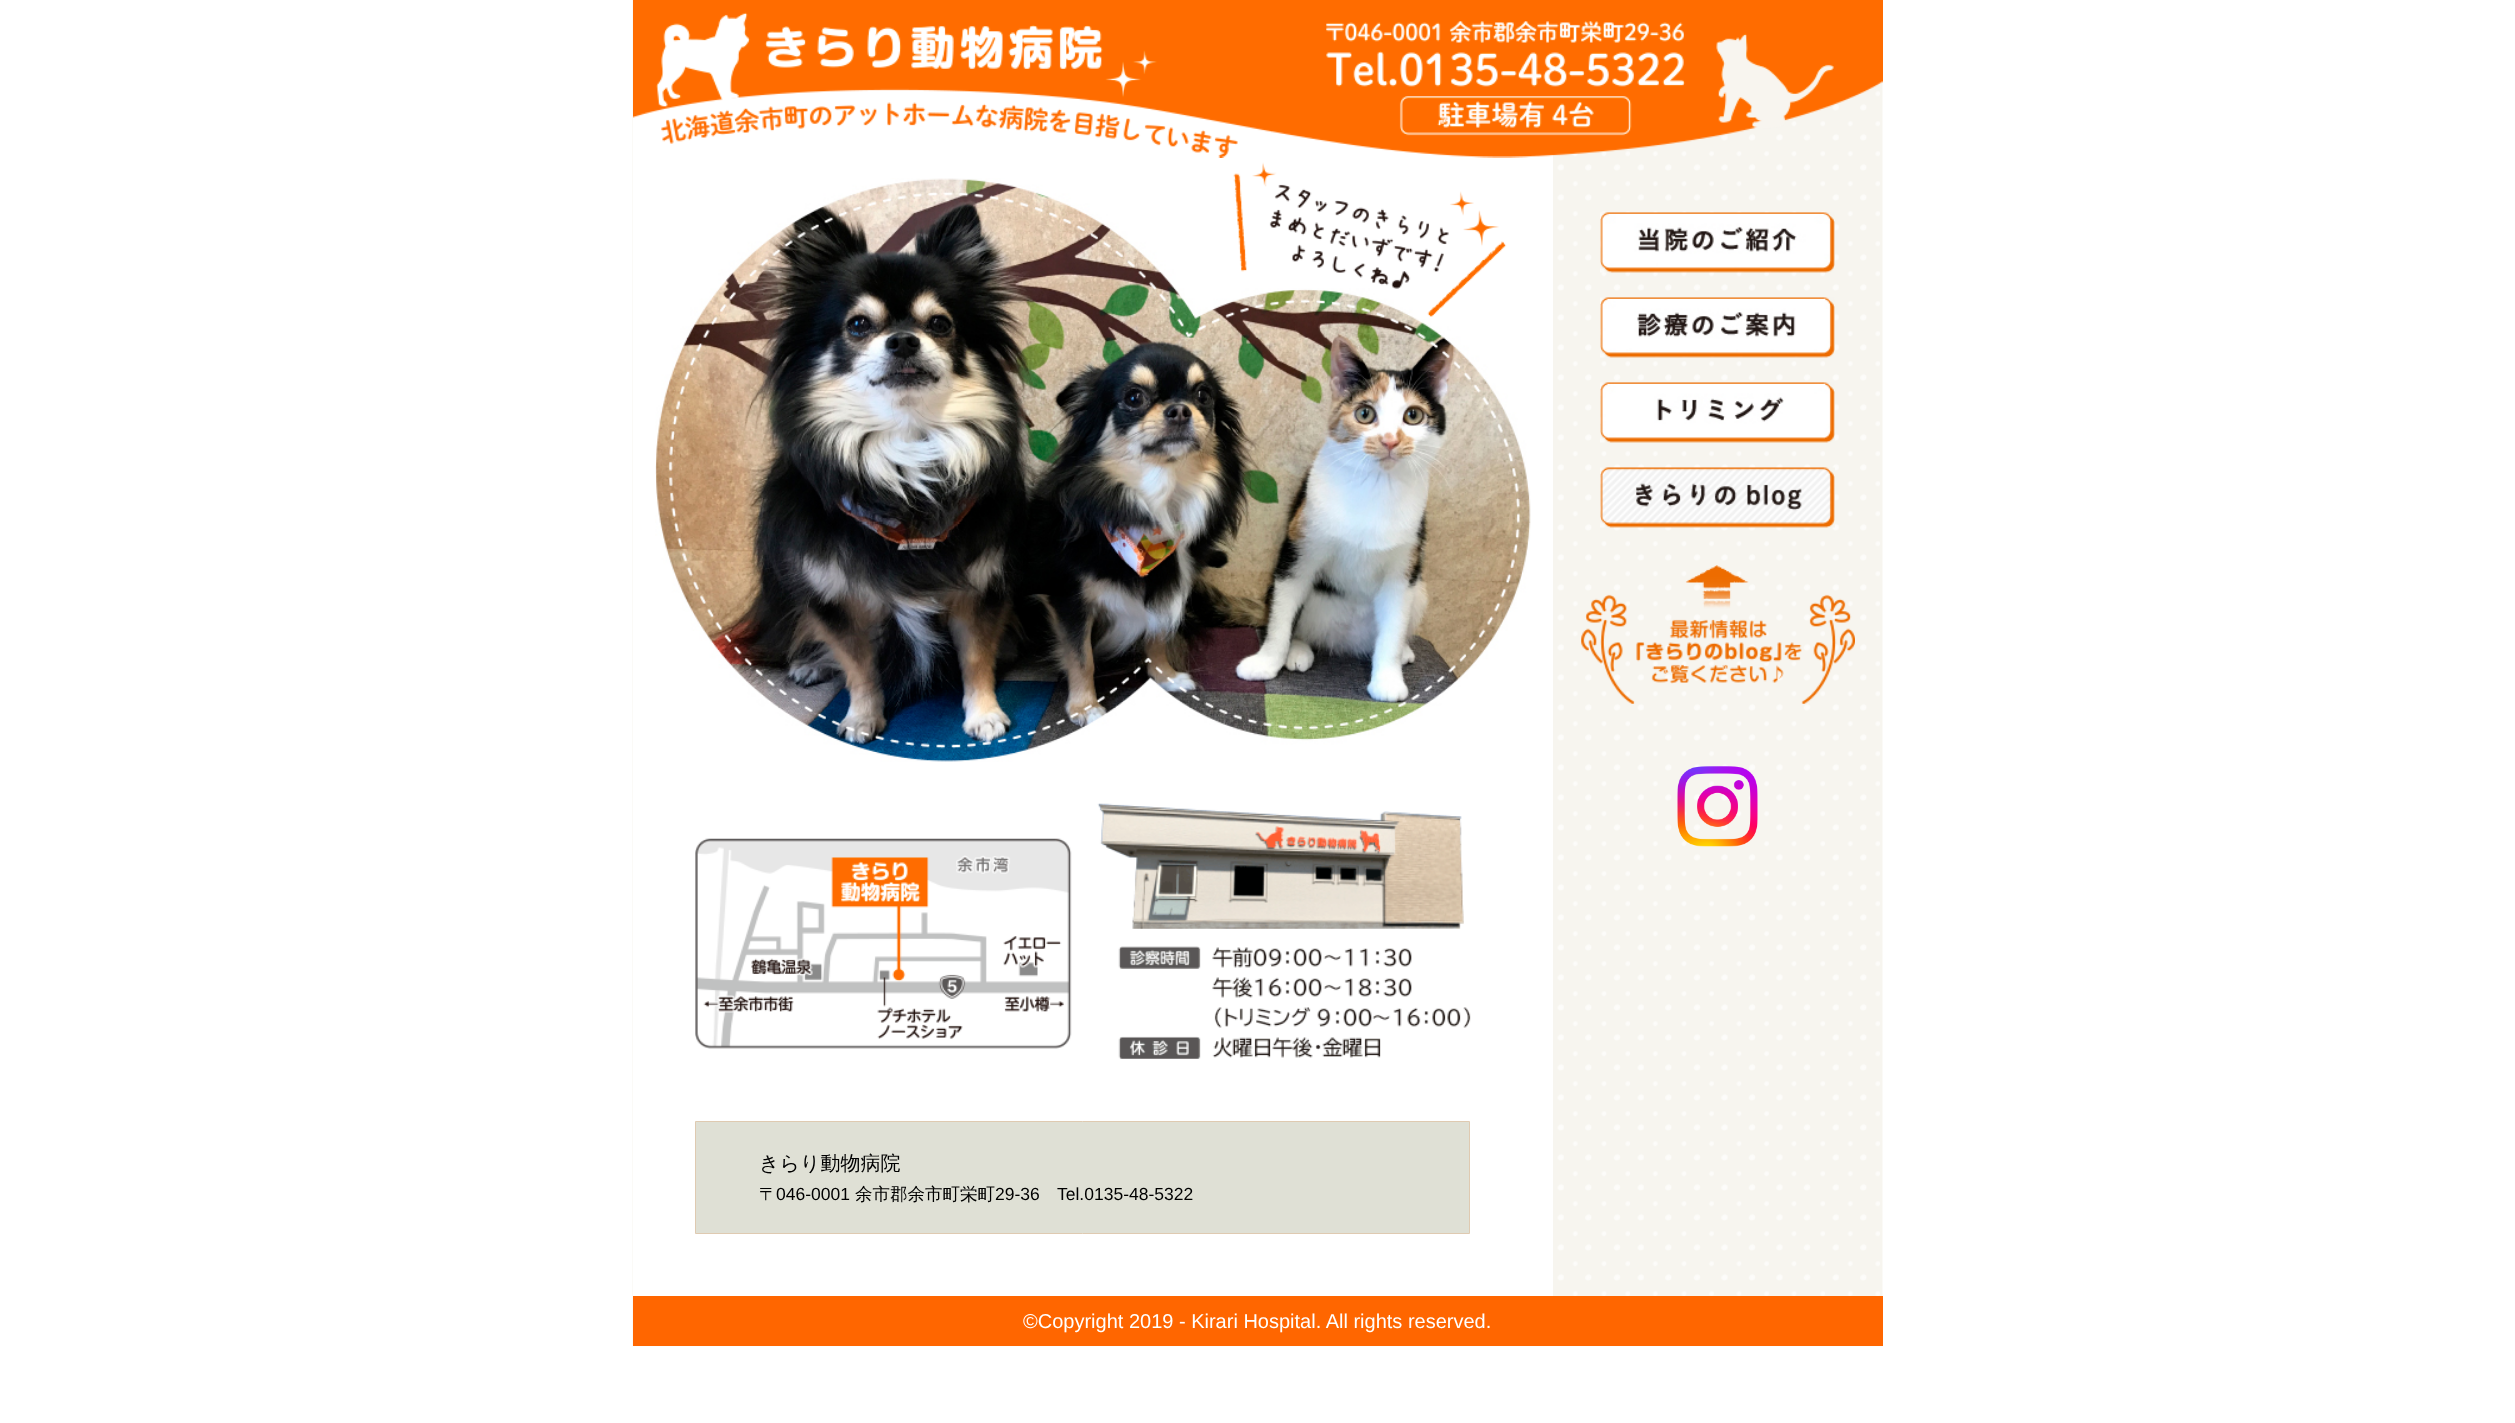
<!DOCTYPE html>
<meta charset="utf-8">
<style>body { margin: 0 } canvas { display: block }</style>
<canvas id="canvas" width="2515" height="1423"></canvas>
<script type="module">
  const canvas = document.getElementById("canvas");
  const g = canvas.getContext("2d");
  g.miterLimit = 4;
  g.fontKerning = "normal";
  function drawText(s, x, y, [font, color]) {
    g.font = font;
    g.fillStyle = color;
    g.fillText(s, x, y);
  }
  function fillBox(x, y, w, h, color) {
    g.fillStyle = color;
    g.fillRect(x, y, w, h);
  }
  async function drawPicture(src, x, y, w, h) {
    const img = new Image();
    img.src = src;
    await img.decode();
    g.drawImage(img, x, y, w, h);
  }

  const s1 = ["500 20px WenQuanYi Zen Hei", "#000000"];
  const s2 = ["500 17.5px WenQuanYi Zen Hei", "#000000"];
  const s3 = ["17.5px Liberation Sans", "#000000"];
  const s4 = ["20px Liberation Sans", "#FFFFFF"];

  fillBox(0, 0, 2515, 1423, "#FFFFFF");
  await drawPicture("pic2.png", 632, 0, 1251, 1347);
  fillBox(633, 88, 920, 1208, "#FFFFFF");
  await drawPicture("pic1.png", 633, 0, 1250, 158);
  await drawPicture("pic3.png", 1600, 212, 235, 61);
  await drawPicture("pic4.png", 1600, 297, 235, 61);
  await drawPicture("pic5.png", 1600, 382, 235, 61);
  await drawPicture("pic6.png", 1600, 467, 235, 61);
  await drawPicture("pic7.png", 1581, 565, 274, 139);
  await drawPicture("pic8.png", 1677, 766, 81, 81);
  await drawPicture("pic10.png", 655, 178, 876, 584);
  await drawPicture("pic9.png", 1233, 162, 274, 155);
  await drawPicture("pic11.png", 695, 838, 377, 211);
  await drawPicture("pic12.png", 1097, 803, 374, 256);
  g.fillStyle = "#DFE0D5";
  g.beginPath();
  g.rect(695.5, 1121.5, 774, 112);
  g.fill();
  g.strokeStyle = "#DFCAB1";
  g.stroke();
  drawText("きらり動物病院", 759, 1170, s1);
  drawText("〒", 759, 1200, s2);
  drawText("046-0001", 776, 1200, s3);
  drawText("余市郡余市町栄町", 855, 1200, s2);
  drawText("29-36", 995, 1200, s3);
  drawText("Tel.0135-48-5322", 1057, 1200, s3);
  fillBox(633, 1296, 1250, 50, "#FF6600");
  drawText("©Copyright 2019 - Kirari Hospital. All rights reserved.", 1023, 1328, s4);
</script>
